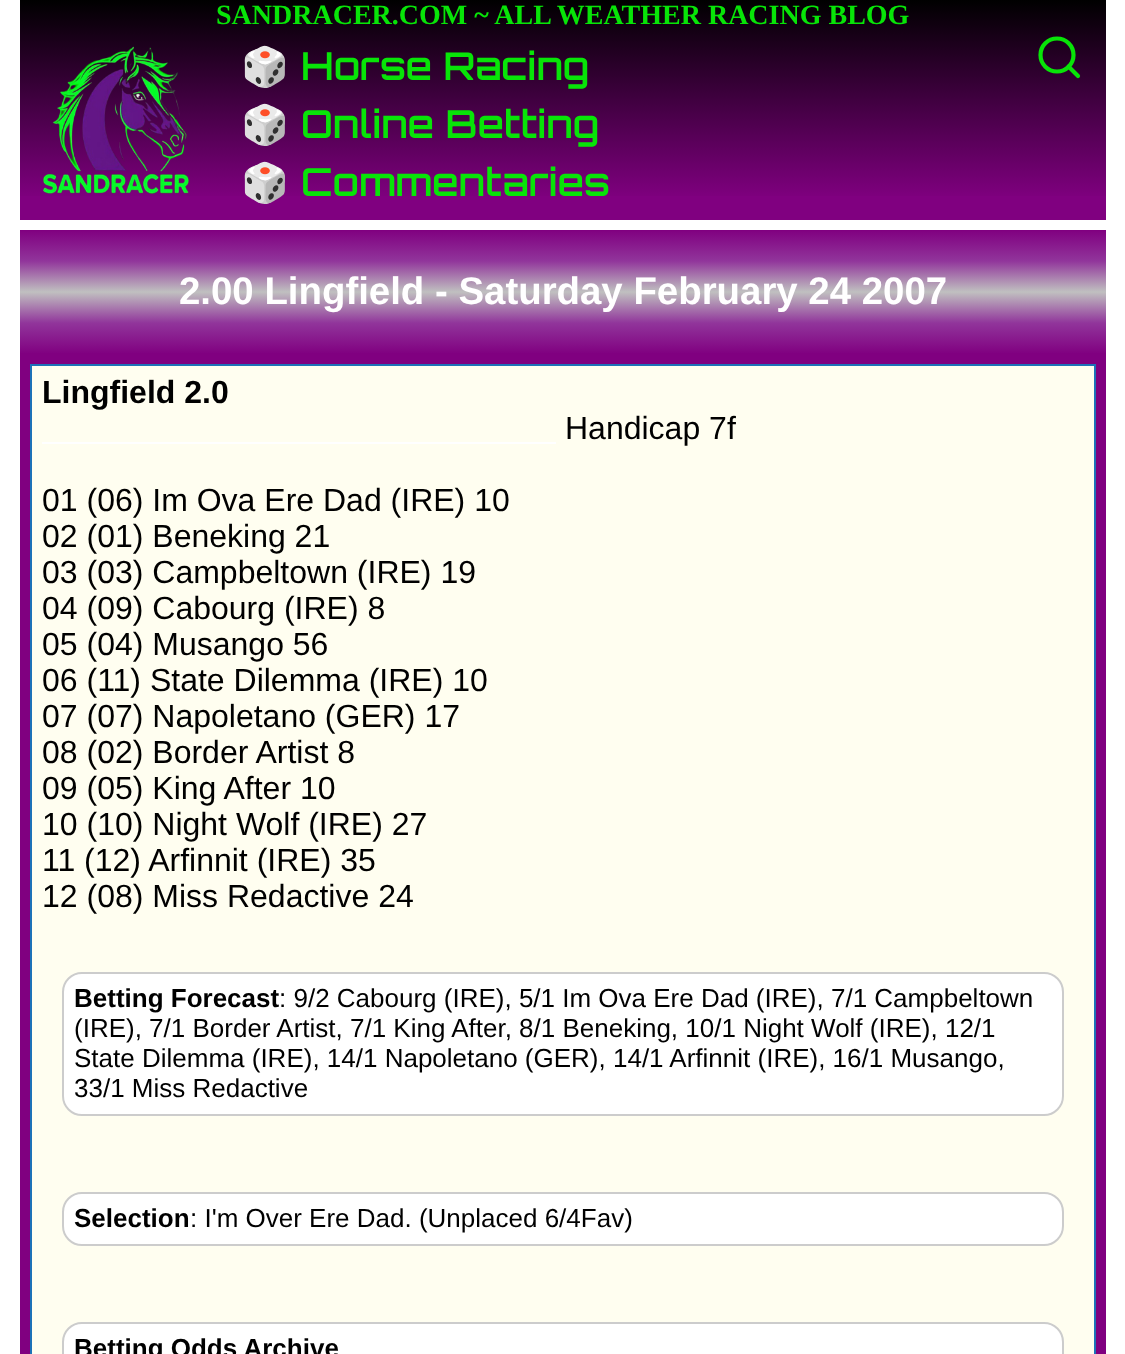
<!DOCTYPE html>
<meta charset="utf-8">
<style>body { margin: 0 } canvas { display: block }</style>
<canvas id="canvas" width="1125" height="1354"></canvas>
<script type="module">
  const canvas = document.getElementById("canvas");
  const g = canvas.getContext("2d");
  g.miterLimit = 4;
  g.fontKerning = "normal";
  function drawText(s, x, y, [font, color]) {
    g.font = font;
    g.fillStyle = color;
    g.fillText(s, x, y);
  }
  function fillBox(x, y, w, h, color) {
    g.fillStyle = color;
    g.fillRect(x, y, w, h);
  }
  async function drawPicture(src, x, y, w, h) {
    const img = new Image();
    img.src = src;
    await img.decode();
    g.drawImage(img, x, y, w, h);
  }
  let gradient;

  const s1 = ["bold 28px Liberation Serif", "#08E408"];
  const s2 = ["bold 38.4px Noto Color Emoji", "#08E408"];
  const s3 = ["600 38.4px Orbitron", "#08E408"];
  const s4 = ["bold 38.4px Liberation Sans", "#FFFFFF"];
  const s5 = ["bold 32px Liberation Sans", "#000000"];
  const s6 = ["32px Liberation Sans", "#000000"];
  const s7 = ["bold 26px Liberation Sans", "#000000"];
  const s8 = ["26px Liberation Sans", "#000000"];

  fillBox(0, 0, 1125, 1354, "#800080");
  fillBox(1106, 0, 19, 1354, "#FFFFFF");
  fillBox(0, 0, 20, 1354, "#FFFFFF");
  gradient = g.createLinearGradient(563, 0, 563, 200);
  gradient.addColorStop(0, "#000000");
  gradient.addColorStop(1, "#800080");
  g.fillStyle = gradient;
  g.fillRect(20, 0, 1086, 196);
  drawText("SANDRACER.COM ~ ALL WEATHER RACING BLOG", 216, 24, s1);
  await drawPicture("pic1.png", 43, 46, 146, 148);
  drawText("🎲", 241, 80, s2);
  drawText("Horse Racing", 301, 80, s3);
  drawText("🎲", 241, 138, s2);
  drawText("Online Betting", 301, 138, s3);
  drawText("🎲", 241, 196, s2);
  drawText("Commentaries", 301, 196, s3);
  g.beginPath();
  g.arc(1057, 55, 16.5, 0, Math.PI * 2);
  g.strokeStyle = "#08E408";
  g.lineWidth = 4.2;
  g.stroke();
  g.beginPath();
  g.moveTo(1078, 76);
  g.lineTo(1068.5, 66.5);
  g.lineCap = "round";
  g.lineJoin = "round";
  g.stroke();
  gradient = g.createLinearGradient(563, 230, 563, 354);
  gradient.addColorStop(0, "#800080");
  gradient.addColorStop(0.25, "#91359B");
  gradient.addColorStop(0.5, "#C0C0C0");
  gradient.addColorStop(0.75, "#91359B");
  gradient.addColorStop(1, "#800080");
  g.fillStyle = gradient;
  g.fillRect(20, 231, 1086, 122);
  fillBox(20, 220, 1086, 10, "#FFFFFF");
  drawText("2.00 Lingfield - Saturday February 24 2007", 179, 304, s4);
  g.fillStyle = "#FFFEF0";
  g.beginPath();
  g.rect(31, 365, 1064, 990);
  g.fill();
  g.strokeStyle = "#1D72B8";
  g.lineWidth = 2;
  g.lineJoin = "miter";
  g.stroke();
  drawText("Lingfield 2.0", 42, 403, s5);
  fillBox(42, 442, 514, 2, "#FFFFFF");
  drawText("Handicap 7f", 565, 439, s6);
  drawText("01 (06) Im Ova Ere Dad (IRE) 10", 42, 511, s6);
  drawText("02 (01) Beneking 21", 42, 547, s6);
  drawText("03 (03) Campbeltown (IRE) 19", 42, 583, s6);
  drawText("04 (09) Cabourg (IRE) 8", 42, 619, s6);
  drawText("05 (04) Musango 56", 42, 655, s6);
  drawText("06 (11) State Dilemma (IRE) 10", 42, 691, s6);
  drawText("07 (07) Napoletano (GER) 17", 42, 727, s6);
  drawText("08 (02) Border Artist 8", 42, 763, s6);
  drawText("09 (05) King After 10", 42, 799, s6);
  drawText("10 (10) Night Wolf (IRE) 27", 42, 835, s6);
  drawText("11 (12) Arfinnit (IRE) 35", 42, 871, s6);
  drawText("12 (08) Miss Redactive 24", 42, 907, s6);
  g.fillStyle = "#FFFFFF";
  g.beginPath();
  g.roundRect(63, 973, 1000, 142, 19);
  g.fill();
  g.strokeStyle = "#CCCCCC";
  g.stroke();
  drawText("Betting Forecast", 74, 1007, s7);
  drawText(": 9/2 Cabourg (IRE), 5/1 Im Ova Ere Dad (IRE), 7/1 Campbeltown", 279, 1007, s8);
  drawText("(IRE), 7/1 Border Artist, 7/1 King After, 8/1 Beneking, 10/1 Night Wolf (IRE), 12/1", 74, 1037, s8);
  drawText("State Dilemma (IRE), 14/1 Napoletano (GER), 14/1 Arfinnit (IRE), 16/1 Musango,", 74, 1067, s8);
  drawText("33/1 Miss Redactive", 74, 1097, s8);
  g.fillStyle = "#FFFFFF";
  g.beginPath();
  g.roundRect(63, 1193, 1000, 52, 19);
  g.fill();
  g.stroke();
  drawText("Selection", 74, 1227, s7);
  drawText(": I'm Over Ere Dad. (Unplaced 6/4Fav)", 190, 1227, s8);
  g.fillStyle = "#FFFFFF";
  g.beginPath();
  g.roundRect(63, 1323, 1000, 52, 19);
  g.fill();
  g.stroke();
  drawText("Betting Odds Archive", 74, 1357, s7);
</script>
